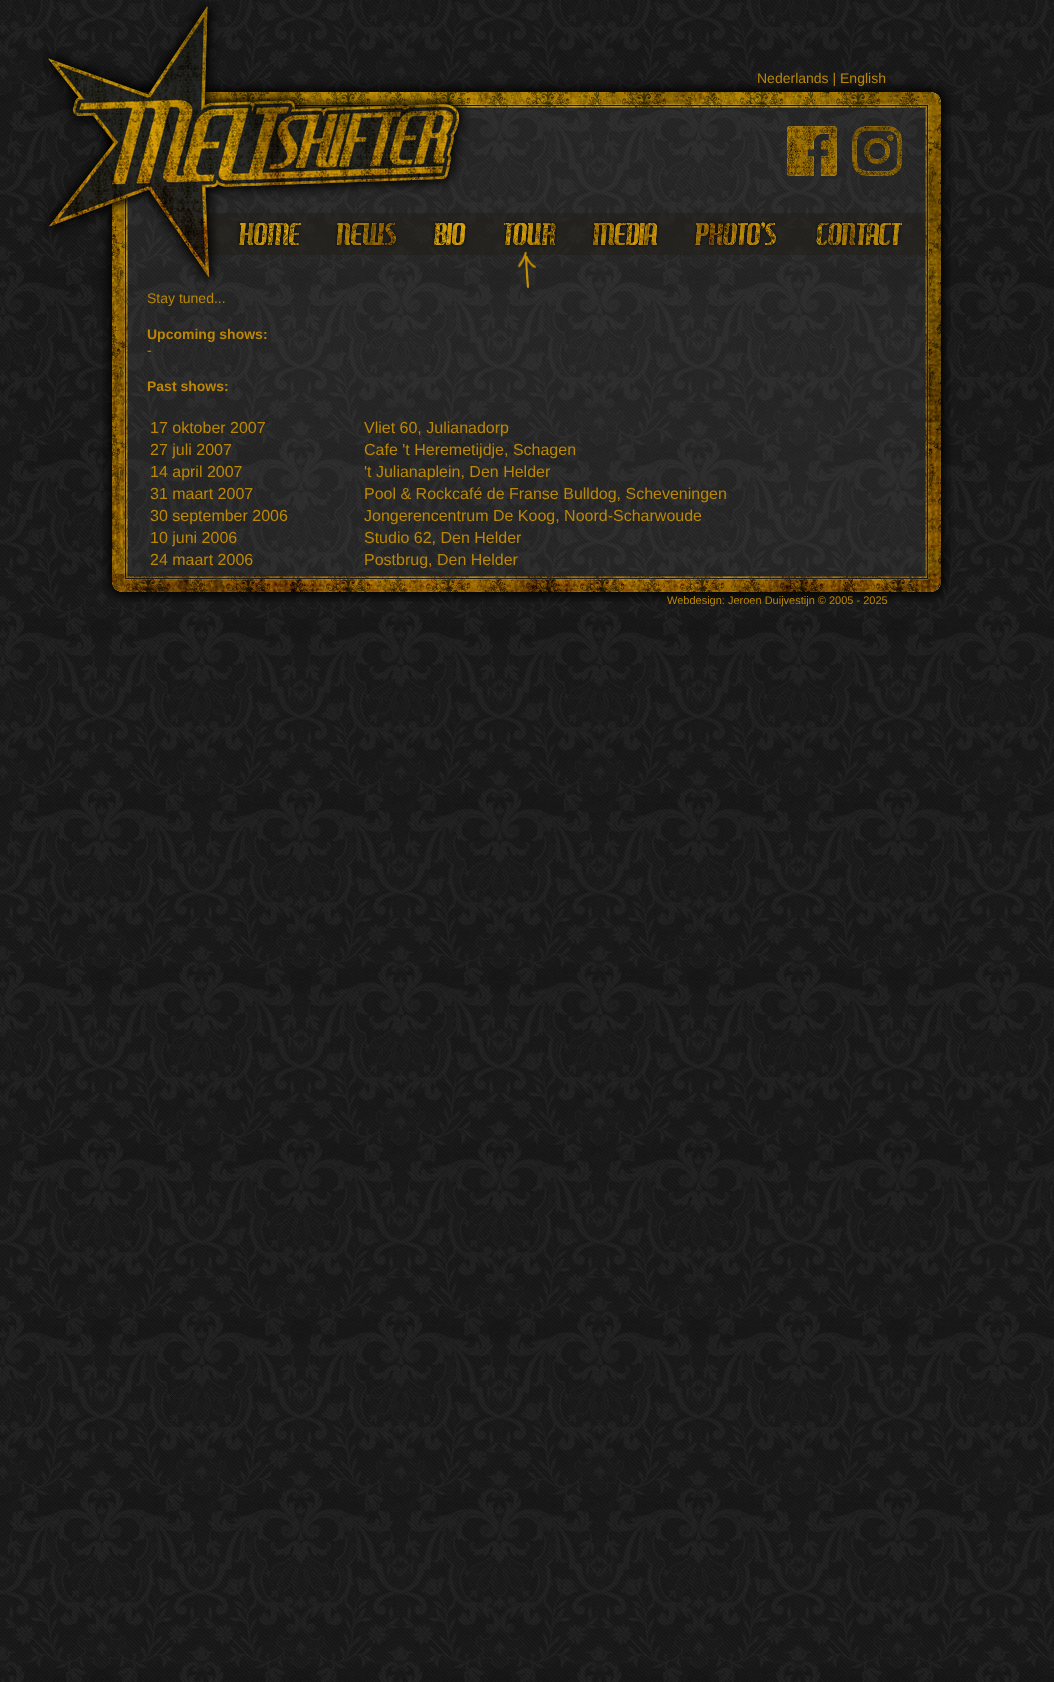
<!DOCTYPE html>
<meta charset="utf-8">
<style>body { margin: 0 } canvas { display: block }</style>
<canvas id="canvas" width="1054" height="1682"></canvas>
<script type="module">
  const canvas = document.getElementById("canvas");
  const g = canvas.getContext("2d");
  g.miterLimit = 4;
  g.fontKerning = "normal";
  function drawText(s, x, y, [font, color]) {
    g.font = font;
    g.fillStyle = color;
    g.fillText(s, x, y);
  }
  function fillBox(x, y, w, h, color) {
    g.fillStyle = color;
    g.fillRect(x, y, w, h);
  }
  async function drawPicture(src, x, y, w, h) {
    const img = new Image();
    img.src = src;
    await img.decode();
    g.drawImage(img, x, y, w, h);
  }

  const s1 = ["14px Liberation Sans", "#BB8704"];
  const s2 = ["bold 14px Liberation Sans", "#BB8704"];
  const s3 = ["16px Liberation Sans", "#BB8704"];
  const s4 = ["11px Liberation Sans", "#BB8704"];

  fillBox(0, 0, 1054, 1682, "#FFFFFF");
  await drawPicture("pic1.png", 0, 0, 1054, 1682);
  await drawPicture("pic2.png", 43, 1, 908, 195);
  drawText("Nederlands | English", 757, 83, s1);
  await drawPicture("pic3.png", 787, 126, 50, 50);
  await drawPicture("pic4.png", 852, 126, 50, 50);
  await drawPicture("pic5.png", 44, 196, 907, 94);
  await drawPicture("pic6.png", 237, 221, 64, 26);
  await drawPicture("pic7.png", 335, 221, 63, 26);
  await drawPicture("pic8.png", 432, 221, 35, 26);
  await drawPicture("pic9.png", 504, 221, 53, 26);
  await drawPicture("pic10.png", 591, 221, 68, 26);
  await drawPicture("pic11.png", 694, 221, 84, 26);
  await drawPicture("pic12.png", 815, 222, 88, 25);
  await drawPicture("pic13.png", 518, 251, 18, 38);
  await drawPicture("pic14.png", 102, 290, 849, 284);
  drawText("Stay tuned...", 147, 303, s1);
  drawText("Upcoming shows:", 147, 339, s2);
  drawText("-", 147, 355, s1);
  drawText("Past shows:", 147, 391, s2);
  drawText("17 oktober 2007", 150, 433, s3);
  drawText("Vliet 60, Julianadorp", 364, 433, s3);
  drawText("27 juli 2007", 150, 455, s3);
  drawText("Cafe 't Heremetijdje, Schagen", 364, 455, s3);
  drawText("14 april 2007", 150, 477, s3);
  drawText("'t Julianaplein, Den Helder", 364, 477, s3);
  drawText("31 maart 2007", 150, 499, s3);
  drawText("Pool & Rockcafé de Franse Bulldog, Scheveningen", 364, 499, s3);
  drawText("30 september 2006", 150, 521, s3);
  drawText("Jongerencentrum De Koog, Noord-Scharwoude", 364, 521, s3);
  drawText("10 juni 2006", 150, 543, s3);
  drawText("Studio 62, Den Helder", 364, 543, s3);
  drawText("24 maart 2006", 150, 565, s3);
  drawText("Postbrug, Den Helder", 364, 565, s3);
  await drawPicture("pic15.png", 102, 574, 848, 28);
  drawText("Webdesign: Jeroen Duijvestijn © 2005 - 2025", 667, 604, s4);
</script>
